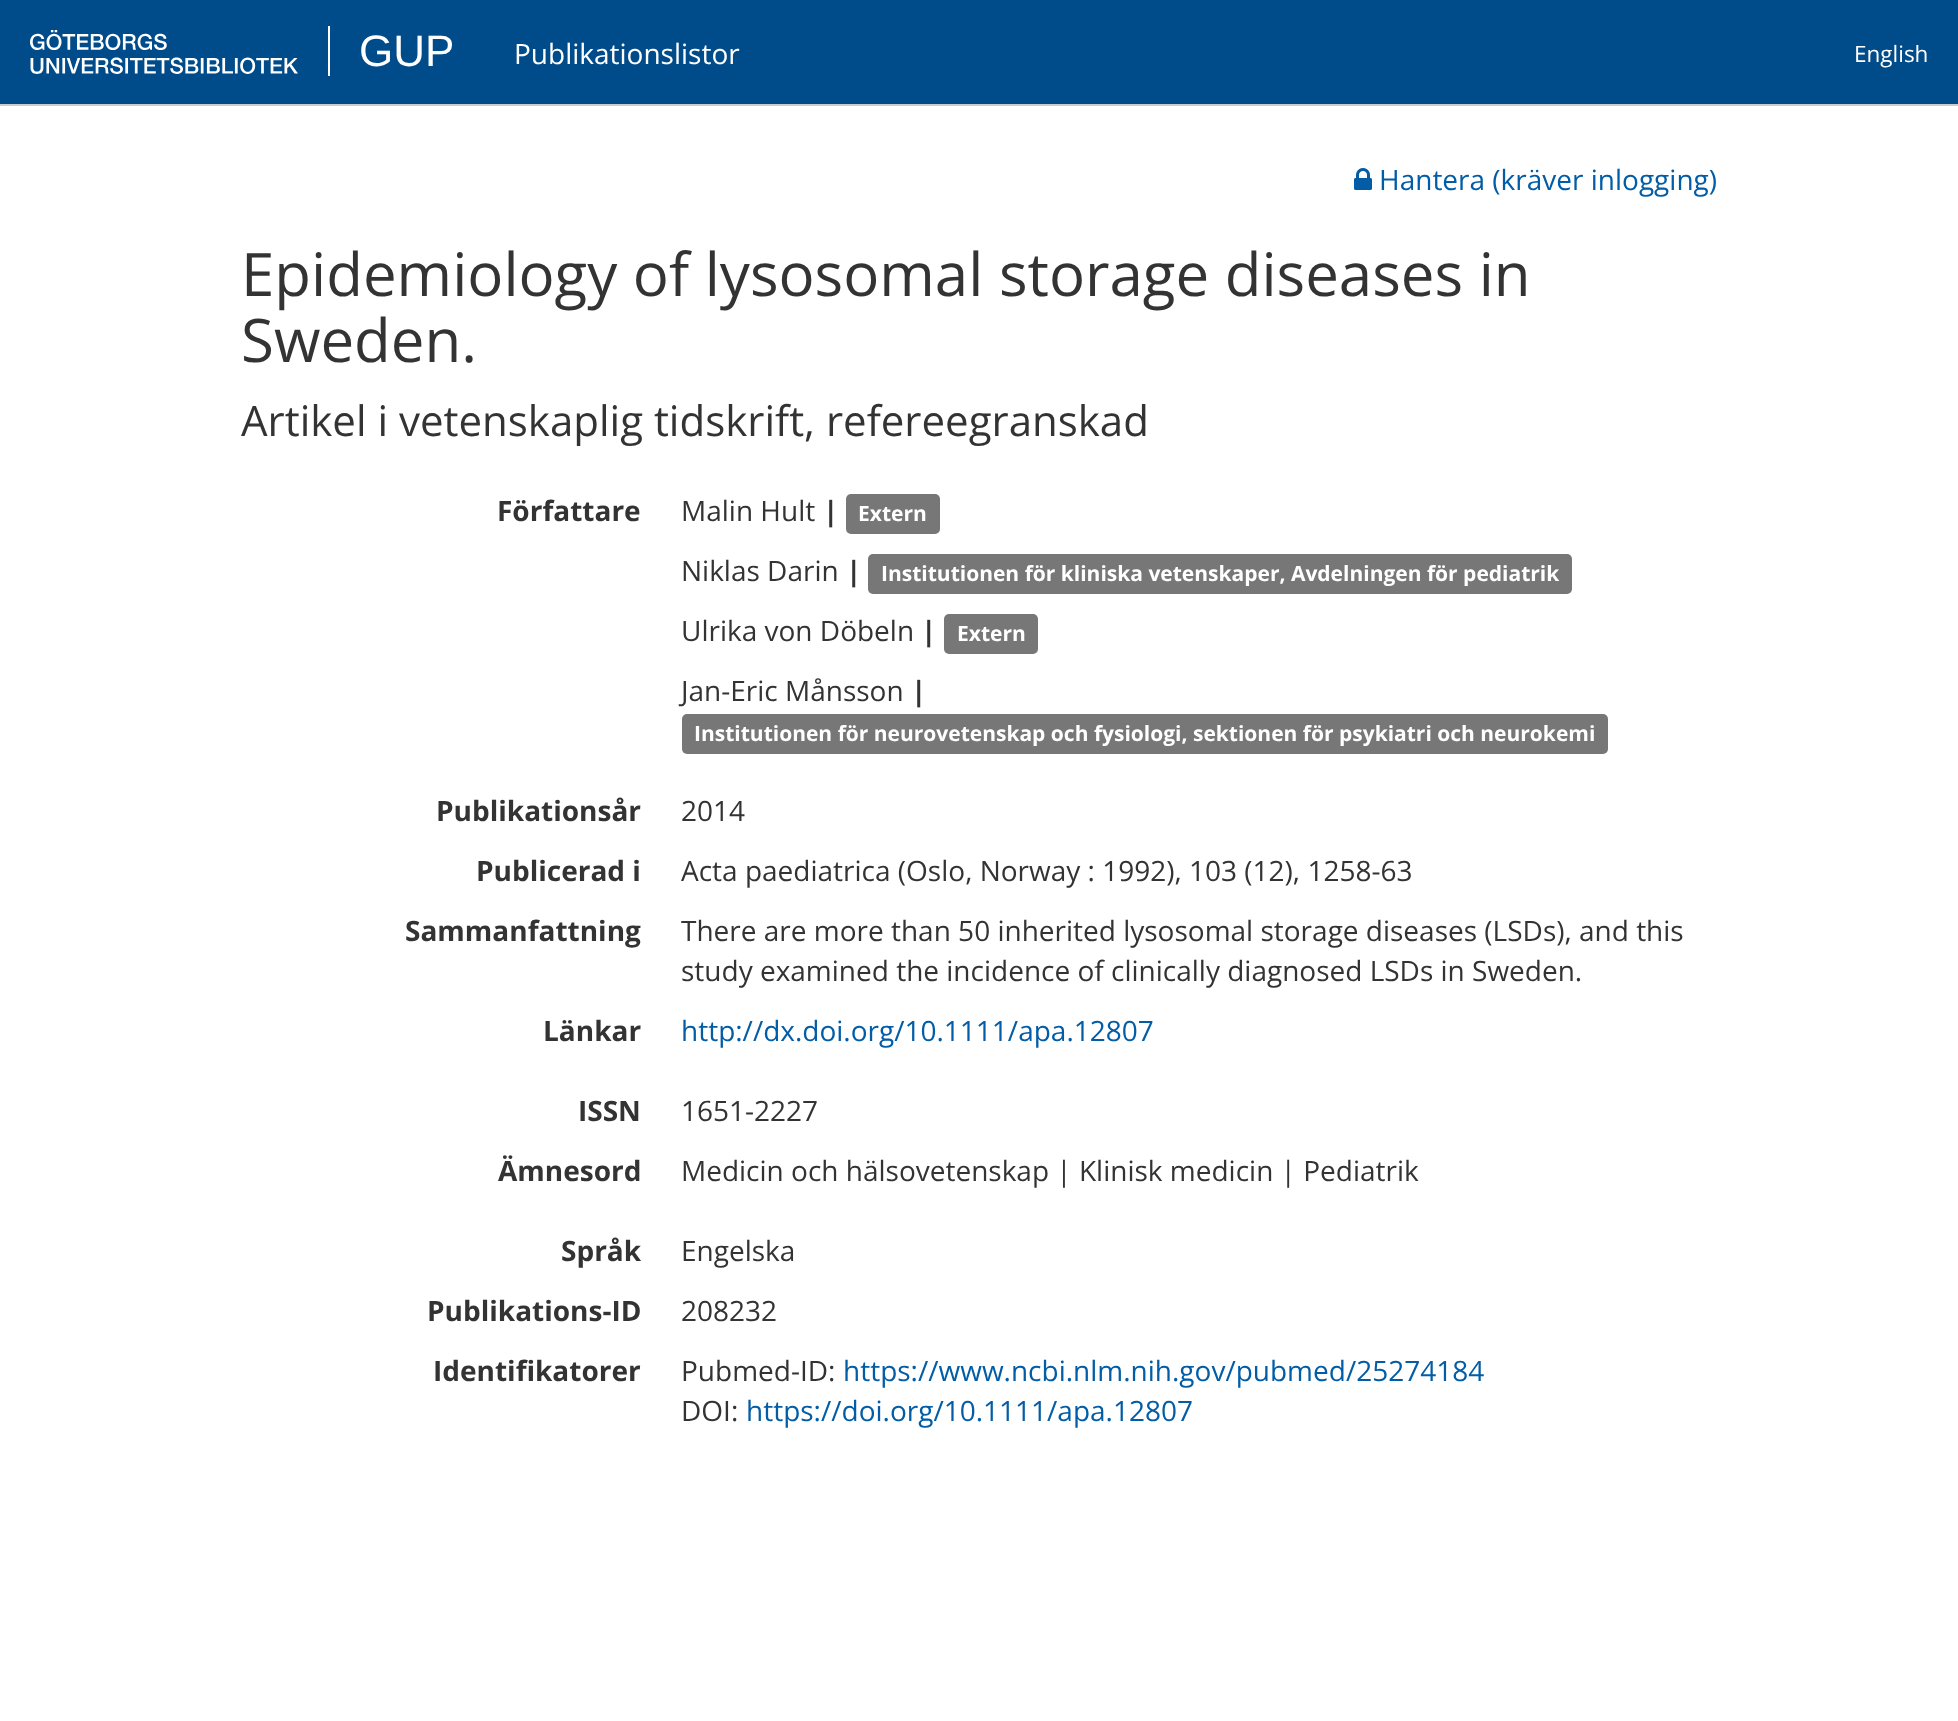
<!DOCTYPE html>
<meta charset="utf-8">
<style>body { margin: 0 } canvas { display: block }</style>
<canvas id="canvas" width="1958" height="1721"></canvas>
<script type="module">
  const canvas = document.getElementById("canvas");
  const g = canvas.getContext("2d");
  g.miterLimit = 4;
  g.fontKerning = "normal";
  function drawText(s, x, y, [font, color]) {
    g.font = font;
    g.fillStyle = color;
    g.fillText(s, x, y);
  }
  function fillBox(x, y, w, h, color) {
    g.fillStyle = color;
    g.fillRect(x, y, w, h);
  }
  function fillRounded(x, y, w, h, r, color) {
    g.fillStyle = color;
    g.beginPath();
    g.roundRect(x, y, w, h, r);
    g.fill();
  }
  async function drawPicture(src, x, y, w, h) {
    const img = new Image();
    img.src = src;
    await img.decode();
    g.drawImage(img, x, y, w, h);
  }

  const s1 = ["44px Liberation Sans", "#FFFFFF"];
  const s2 = ["28px Open Sans", "#FFFFFF"];
  const s3 = ["22.5px Open Sans", "#FFFFFF"];
  const s4 = ["28px Open Sans", "#025DA6"];
  const s5 = ["60px Open Sans", "#333333"];
  const s6 = ["42px Open Sans", "#333333"];
  const s7 = ["bold 28px Open Sans", "#333333"];
  const s8 = ["28px Open Sans", "#333333"];
  const s9 = ["bold 21px Open Sans", "#FFFFFF"];

  fillBox(0, 0, 1958, 1721, "#FFFFFF");
  fillBox(0, 0, 1958, 104, "#004B89");
  fillBox(0, 104, 1958, 2, "#CCCCCC");
  await drawPicture("pic1.png", 30, 30, 268, 44);
  fillBox(328, 26, 2, 50, "#FFFFFF");
  drawText("GUP", 359, 66, s1);
  drawText("Publikationslistor", 514, 64, s2);
  drawText("English", 1854, 62, s3);
  await drawPicture("pic2.png", 1354, 168, 18, 22);
  drawText("Hantera (kräver inlogging)", 1379, 190, s4);
  drawText("Epidemiology of lysosomal storage diseases in", 241, 296, s5);
  drawText("Sweden.", 241, 362, s5);
  drawText("Artikel i vetenskaplig tidskrift, refereegranskad", 241, 436, s6);
  drawText("Författare", 497, 521, s7);
  drawText("Malin Hult", 681, 521, s8);
  drawText("|", 823, 521, s7);
  fillRounded(846, 494, 94, 40, 5, "#777777");
  drawText("Extern", 858, 521, s9);
  drawText("Niklas Darin", 681, 581, s8);
  drawText("|", 846, 581, s7);
  fillRounded(868, 554, 704, 40, 5, "#777777");
  drawText("Institutionen för kliniska vetenskaper, Avdelningen för pediatrik", 881, 581, s9);
  drawText("Ulrika von Döbeln", 681, 641, s8);
  drawText("|", 921, 641, s7);
  fillRounded(944, 614, 94, 40, 5, "#777777");
  drawText("Extern", 957, 641, s9);
  drawText("Jan-Eric Månsson", 681, 701, s8);
  drawText("|", 911, 701, s7);
  fillRounded(682, 714, 926, 40, 5, "#777777");
  drawText("Institutionen för neurovetenskap och fysiologi, sektionen för psykiatri och neurokemi", 694, 741, s9);
  drawText("Publikationsår", 436, 821, s7);
  drawText("2014", 681, 821, s8);
  drawText("Publicerad i", 476, 881, s7);
  drawText("Acta paediatrica (Oslo, Norway : 1992), 103 (12), 1258-63", 681, 881, s8);
  drawText("Sammanfattning", 405, 941, s7);
  drawText("There are more than 50 inherited lysosomal storage diseases (LSDs), and this", 681, 941, s8);
  drawText("study examined the incidence of clinically diagnosed LSDs in Sweden.", 681, 981, s8);
  drawText("Länkar", 543, 1041, s7);
  drawText("http://dx.doi.org/10.1111/apa.12807", 681, 1041, s4);
  drawText("ISSN", 578, 1121, s7);
  drawText("1651-2227", 681, 1121, s8);
  drawText("Ämnesord", 498, 1181, s7);
  drawText("Medicin och hälsovetenskap | Klinisk medicin | Pediatrik", 681, 1181, s8);
  drawText("Språk", 561, 1261, s7);
  drawText("Engelska", 681, 1261, s8);
  drawText("Publikations-ID", 427, 1321, s7);
  drawText("208232", 681, 1321, s8);
  drawText("Identifikatorer", 433, 1381, s7);
  drawText("Pubmed-ID:", 681, 1381, s8);
  drawText("https://www.ncbi.nlm.nih.gov/pubmed/25274184", 843, 1381, s4);
  drawText("DOI:", 681, 1421, s8);
  drawText("https://doi.org/10.1111/apa.12807", 746, 1421, s4);
</script>
